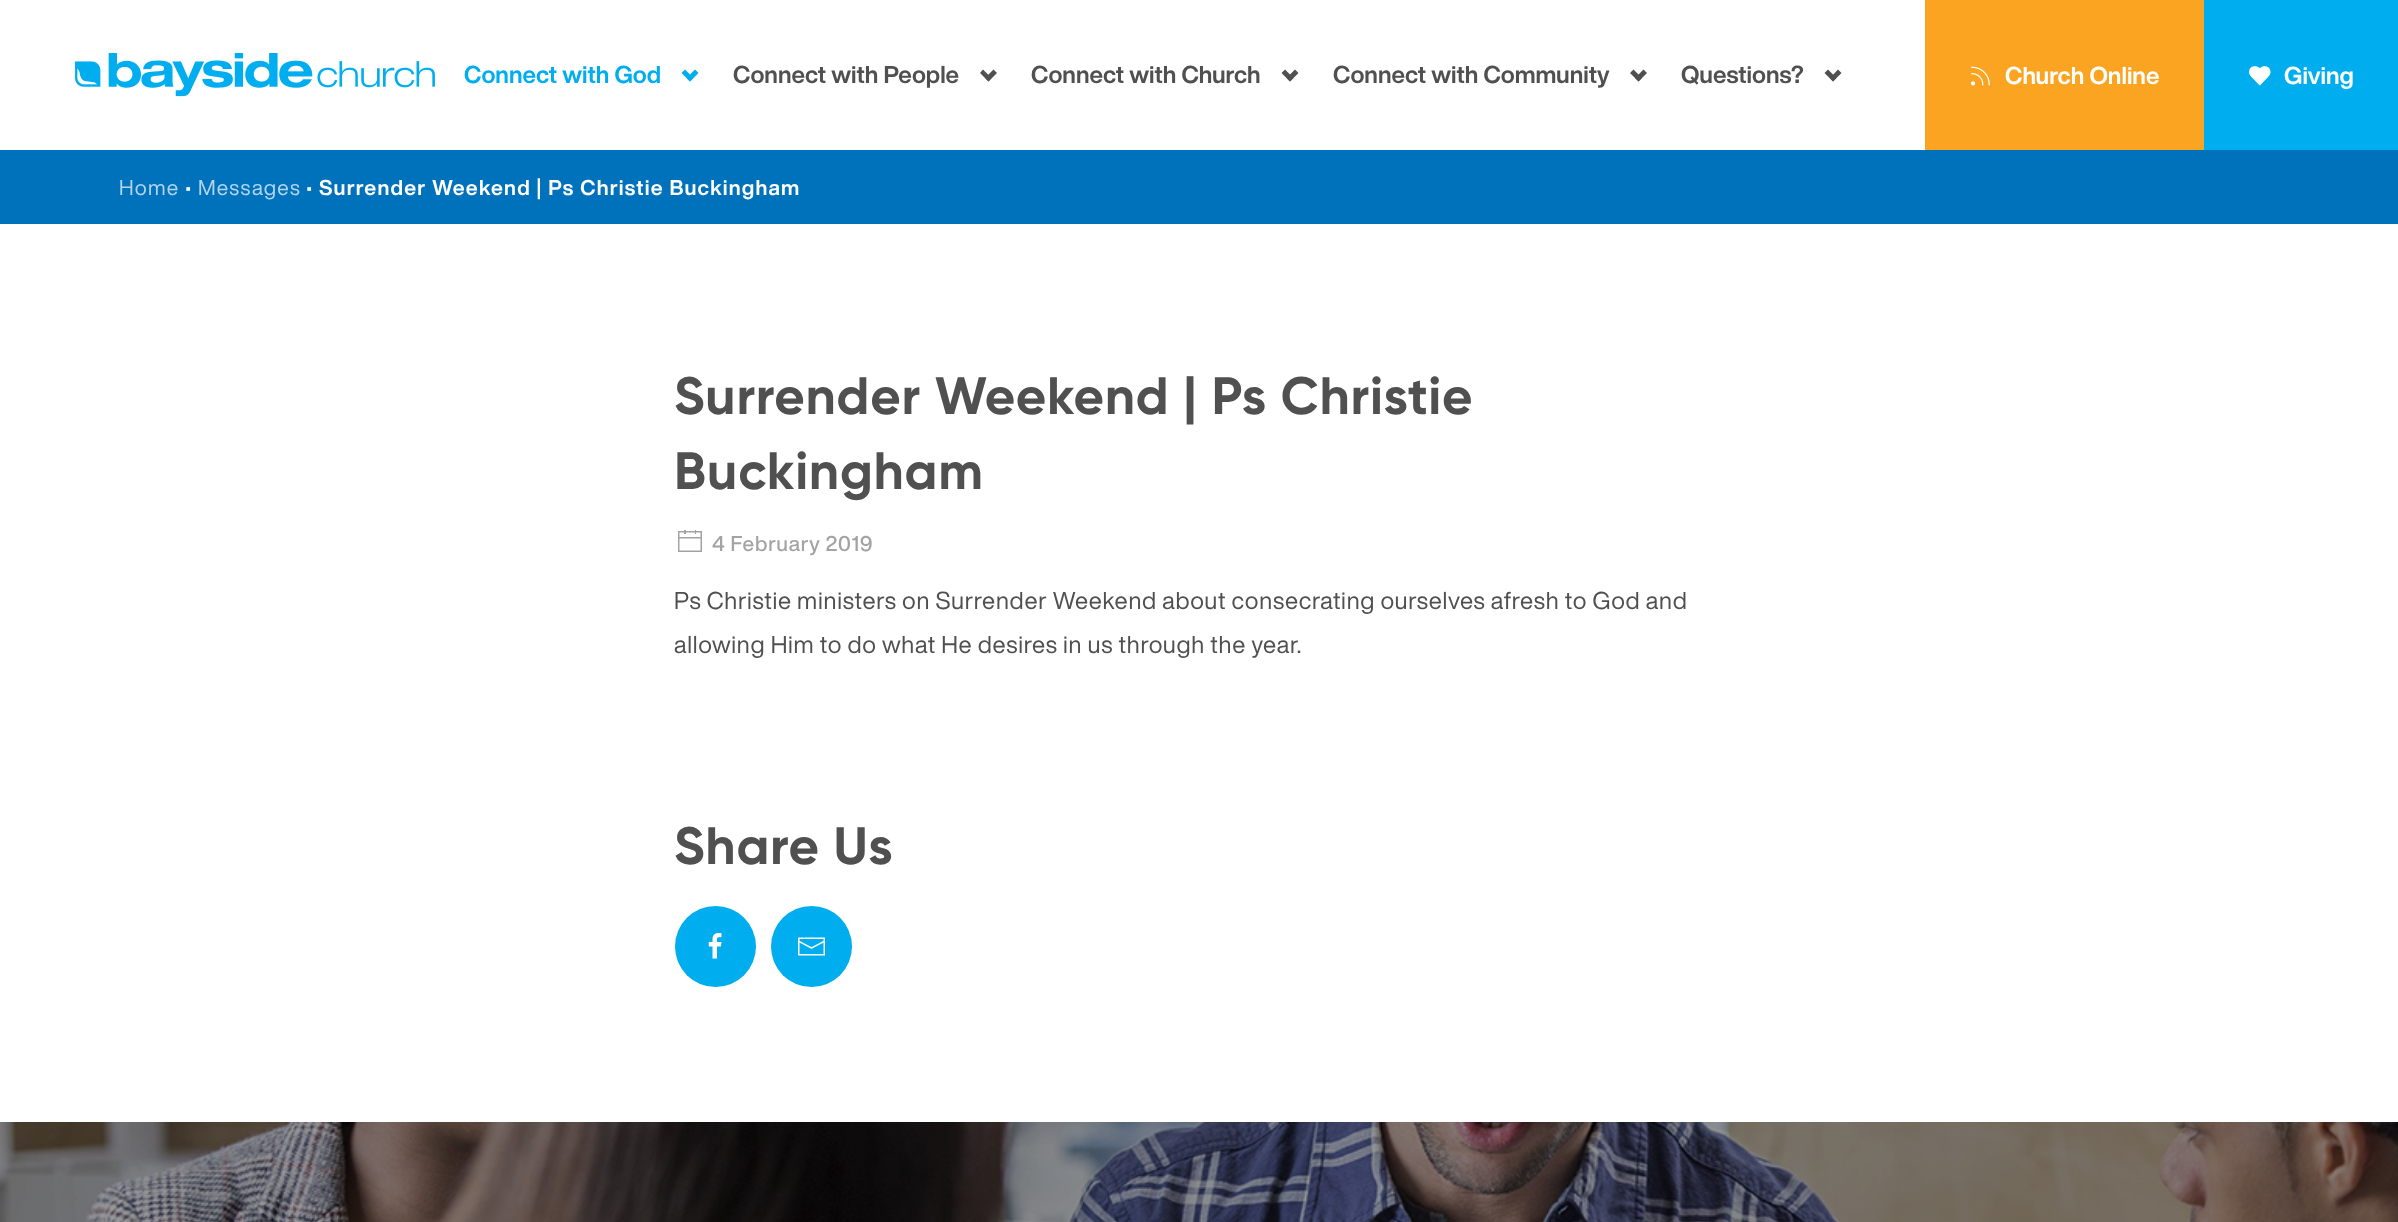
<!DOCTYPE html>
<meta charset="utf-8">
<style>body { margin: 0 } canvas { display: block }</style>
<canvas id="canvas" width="2398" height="1222"></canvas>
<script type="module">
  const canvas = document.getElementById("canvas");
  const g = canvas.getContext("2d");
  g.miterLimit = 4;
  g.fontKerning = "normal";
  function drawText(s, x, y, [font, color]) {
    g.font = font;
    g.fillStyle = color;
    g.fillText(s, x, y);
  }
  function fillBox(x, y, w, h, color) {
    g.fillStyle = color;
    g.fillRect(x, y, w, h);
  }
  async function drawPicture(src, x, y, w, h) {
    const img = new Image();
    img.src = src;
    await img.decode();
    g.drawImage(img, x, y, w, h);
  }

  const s1 = ["bold 24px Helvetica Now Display", "#00ADEE"];
  const s2 = ["bold 24px Helvetica Now Display", "#505050"];
  const s3 = ["bold 24px Helvetica Now Display", "#FFFFFF"];
  const s4 = ["21px Helvetica Now Display", "#B3D5EB"];
  const s5 = ["21px Helvetica Now Display", "#FFFFFF"];
  const s6 = ["bold 21px Helvetica Now Display", "#FFFFFF"];
  const s7 = ["bold 52.5px Gilroy", "#505050"];
  const s8 = ["500 21px Helvetica Now Display", "#A3A3A3"];
  const s9 = ["24px Helvetica Now Display", "#505050"];

  fillBox(0, 0, 2398, 1222, "#FFFFFF");
  await drawPicture("pic1.png", 75, 53, 360, 44);
  drawText("Connect with God", 464, 83, s1);
  g.beginPath();
  g.moveTo(681.5, 73);
  g.lineTo(685, 69.5);
  g.lineTo(693.5, 78);
  g.lineTo(690, 81.5);
  g.closePath();
  g.fill();
  g.beginPath();
  g.moveTo(686.5, 78);
  g.lineTo(695, 69.5);
  g.lineTo(698.5, 73);
  g.lineTo(690, 81.5);
  g.closePath();
  g.fill();
  drawText("Connect with People", 733, 83, s2);
  g.beginPath();
  g.moveTo(980, 73);
  g.lineTo(983, 69.5);
  g.lineTo(991.5, 78);
  g.lineTo(988.5, 81.5);
  g.closePath();
  g.fill();
  g.beginPath();
  g.moveTo(985, 78);
  g.lineTo(993.5, 69.5);
  g.lineTo(997, 73);
  g.lineTo(988.5, 81.5);
  g.closePath();
  g.fill();
  drawText("Connect with Church", 1031, 83, s2);
  g.beginPath();
  g.moveTo(1281.5, 73);
  g.lineTo(1285, 69.5);
  g.lineTo(1293.5, 78);
  g.lineTo(1290, 81.5);
  g.closePath();
  g.fill();
  g.beginPath();
  g.moveTo(1286.5, 78);
  g.lineTo(1295, 69.5);
  g.lineTo(1298.5, 73);
  g.lineTo(1290, 81.5);
  g.closePath();
  g.fill();
  drawText("Connect with Community", 1333, 83, s2);
  g.beginPath();
  g.moveTo(1630, 73);
  g.lineTo(1633.5, 69.5);
  g.lineTo(1642, 78);
  g.lineTo(1638.5, 81.5);
  g.closePath();
  g.fill();
  g.beginPath();
  g.moveTo(1635, 78);
  g.lineTo(1643.5, 69.5);
  g.lineTo(1647, 73);
  g.lineTo(1638.5, 81.5);
  g.closePath();
  g.fill();
  drawText("Questions?", 1681, 83, s2);
  g.beginPath();
  g.moveTo(1824.5, 73);
  g.lineTo(1828, 69.5);
  g.lineTo(1836.5, 78);
  g.lineTo(1833, 81.5);
  g.closePath();
  g.fill();
  g.beginPath();
  g.moveTo(1830, 78);
  g.lineTo(1838, 69.5);
  g.lineTo(1841.5, 73);
  g.lineTo(1833, 81.5);
  g.closePath();
  g.fill();
  fillBox(1925, 0, 279, 150, "#FAA421");
  await drawPicture("pic2.png", 1970, 66, 20, 20);
  drawText("Church Online", 2005, 84, s3);
  fillBox(2204, 0, 194, 150, "#00ADEE");
  await drawPicture("pic3.png", 2249, 66, 22, 20);
  drawText("Giving", 2284, 84, s3);
  fillBox(0, 150, 2398, 74, "#0072BC");
  g.letterSpacing = "1.2px";
  drawText("Home", 119, 195, s4);
  drawText("•", 185, 195, s5);
  drawText("Messages", 198, 195, s4);
  drawText("•", 306, 195, s5);
  drawText("Surrender Weekend | Ps Christie Buckingham", 319, 195, s6);
  g.letterSpacing = "0.75px";
  drawText("Surrender Weekend | Ps Christie", 674, 414, s7);
  drawText("Buckingham", 674, 489, s7);
  await drawPicture("pic4.png", 678, 530, 24, 22);
  drawText("4 February 2019", 712, 551, s8);
  drawText("Ps Christie ministers on Surrender Weekend about consecrating ourselves afresh to God and", 674, 609, s9);
  drawText("allowing Him to do what He desires in us through the year.", 674, 653, s9);
  drawText("Share Us", 674, 864, s7);
  g.fillStyle = "#00ADEE";
  g.beginPath();
  g.arc(715.5, 946.5, 40.5, 0, Math.PI * 2);
  g.fill();
  await drawPicture("pic5.png", 708, 933, 14, 26);
  g.beginPath();
  g.arc(811.5, 946.5, 40.5, 0, Math.PI * 2);
  g.fill();
  await drawPicture("pic6.png", 798, 937, 27, 19);
  await drawPicture("pic7.png", 0, 1122, 2398, 100);
</script>
